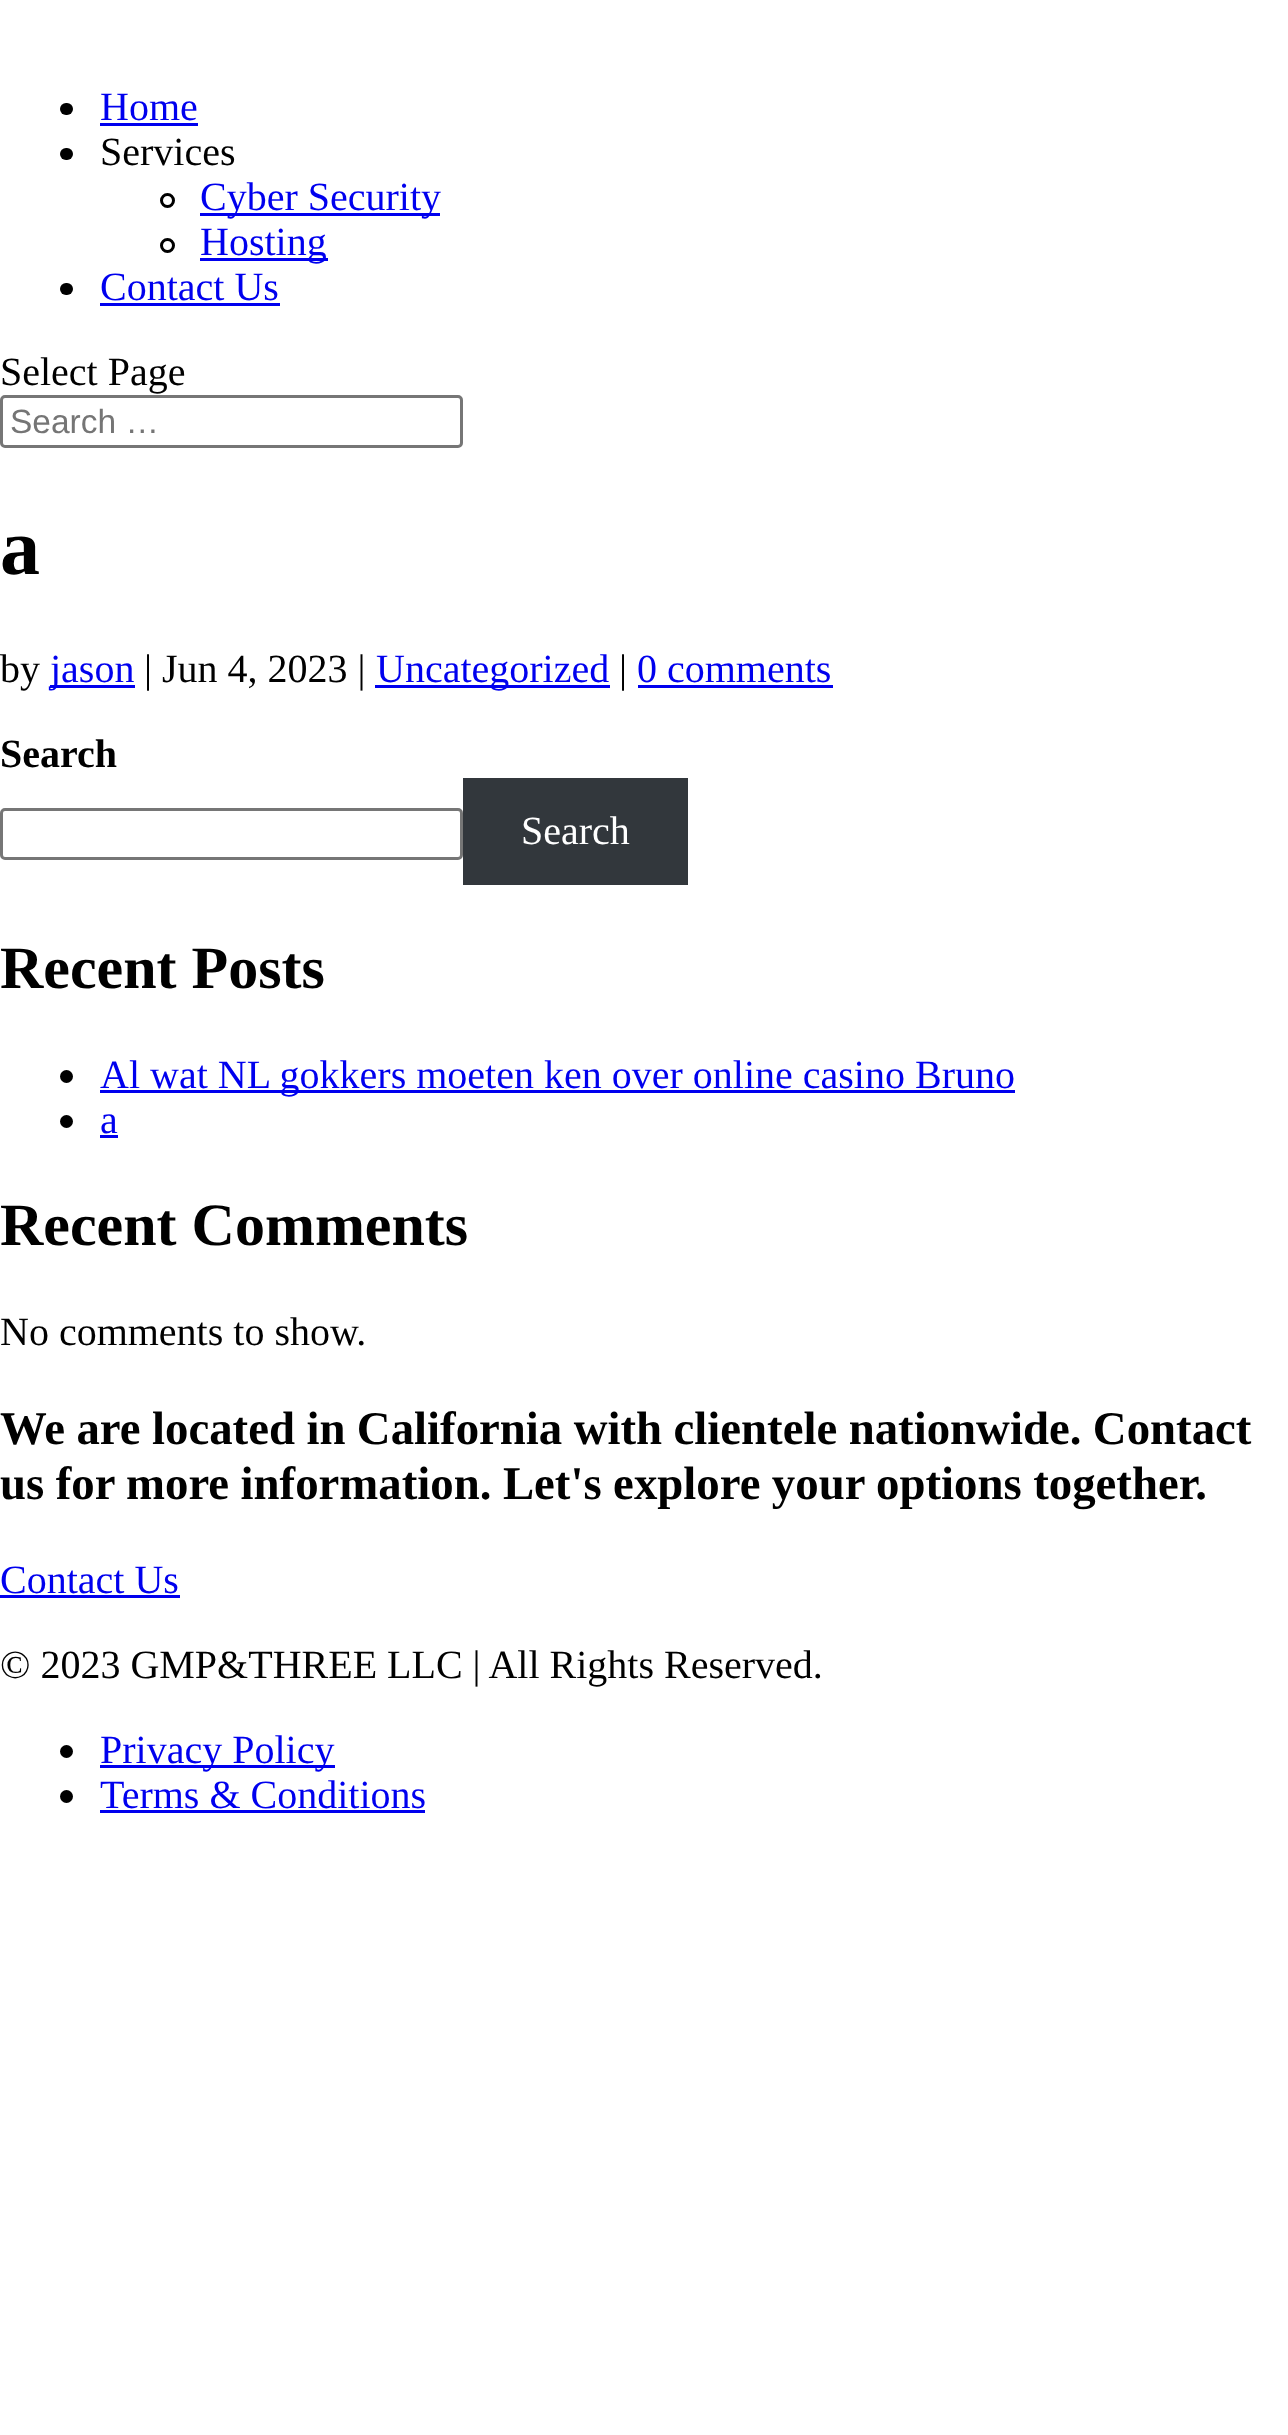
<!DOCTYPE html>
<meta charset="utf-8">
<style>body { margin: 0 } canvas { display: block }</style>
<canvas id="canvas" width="1288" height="2435"></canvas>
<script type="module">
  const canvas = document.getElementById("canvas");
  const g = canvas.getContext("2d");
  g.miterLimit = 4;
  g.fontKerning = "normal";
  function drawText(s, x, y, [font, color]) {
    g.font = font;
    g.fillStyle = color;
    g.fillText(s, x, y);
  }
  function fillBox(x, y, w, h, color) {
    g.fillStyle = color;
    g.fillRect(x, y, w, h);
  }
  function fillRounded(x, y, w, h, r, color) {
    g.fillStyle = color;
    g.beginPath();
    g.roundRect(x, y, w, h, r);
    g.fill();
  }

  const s1 = ["40px Liberation Serif", "#0000EE"];
  const s2 = ["40px Liberation Serif", "#000000"];
  const s3 = ["33.5px Liberation Sans", "#757575"];
  const s4 = ["bold 80px Liberation Serif", "#000000"];
  const s5 = ["bold 40px Liberation Serif", "#000000"];
  const s6 = ["40px Liberation Serif", "#FFFFFF"];
  const s7 = ["bold 60px Liberation Serif", "#000000"];
  const s8 = ["bold 46.8px Liberation Serif", "#000000"];

  fillBox(0, 0, 1288, 2435, "#FFFFFF");
  fillRounded(60, 103, 13, 12, 6, "#000000");
  drawText("Home", 100, 120, s1);
  fillBox(100, 123, 98, 3, "#0000EE");
  fillRounded(60, 148, 13, 12, 6, "#000000");
  drawText("Services", 100, 165, s2);
  g.beginPath();
  g.arc(167.5, 200.5, 6, 0, Math.PI * 2);
  g.strokeStyle = "#000000";
  g.lineWidth = 3;
  g.stroke();
  fillBox(200, 213, 240, 3, "#0000EE");
  drawText("Cyber Security", 200, 210, s1);
  g.beginPath();
  g.arc(167.5, 245.5, 6, 0, Math.PI * 2);
  g.stroke();
  fillBox(200, 258, 128, 3, "#0000EE");
  drawText("Hosting", 200, 255, s1);
  fillRounded(60, 283, 13, 12, 6, "#000000");
  drawText("Contact Us", 100, 300, s1);
  fillBox(100, 303, 180, 3, "#0000EE");
  drawText("Select Page", 0, 385, s2);
  g.beginPath();
  g.roundRect(1.5, 396.5, 460, 50, 3.5);
  g.strokeStyle = "#767676";
  g.stroke();
  drawText("Search …", 10, 433, s3);
  drawText("a", 0, 574, s4);
  drawText("by", 0, 682, s2);
  fillBox(50, 685, 85, 3, "#0000EE");
  drawText("jason", 50, 682, s1);
  drawText("| Jun 4, 2023 |", 144, 682, s2);
  fillBox(375, 685, 235, 3, "#0000EE");
  drawText("Uncategorized", 376, 682, s1);
  drawText("|", 619, 682, s2);
  drawText("0 comments", 637, 682, s1);
  fillBox(638, 685, 195, 3, "#0000EE");
  drawText("Search", 0, 767, s5);
  g.beginPath();
  g.roundRect(1.5, 809.5, 460, 49, 3.5);
  g.stroke();
  fillBox(463, 778, 225, 107, "#32373C");
  drawText("Search", 521, 844, s6);
  drawText("Recent Posts", 0, 988, s7);
  g.beginPath();
  g.arc(66.5, 1076.5, 6.5, 0, Math.PI * 2);
  g.fill();
  fillBox(100, 1090, 915, 3, "#0000EE");
  drawText("Al wat NL gokkers moeten ken over online casino Bruno", 100, 1088, s1);
  g.fillStyle = "#000000";
  g.beginPath();
  g.arc(66.5, 1121.5, 6.5, 0, Math.PI * 2);
  g.fill();
  drawText("a", 100, 1133, s1);
  fillBox(100, 1135, 18, 3, "#0000EE");
  drawText("Recent Comments", 0, 1245, s7);
  drawText("No comments to show.", 0, 1345, s2);
  g.wordSpacing = "-0.25px";
  drawText("We are located in California with clientele nationwide. Contact", 0, 1444, s8);
  drawText("us for more information. Let's explore your options together.", 0, 1499, s8);
  g.wordSpacing = "0px";
  drawText("Contact Us", 0, 1593, s1);
  fillBox(0, 1595, 180, 3, "#0000EE");
  drawText("© 2023 GMP&THREE LLC | All Rights Reserved.", 0, 1678, s2);
  g.beginPath();
  g.arc(66.5, 1751.5, 6.5, 0, Math.PI * 2);
  g.fill();
  fillBox(100, 1765, 235, 3, "#0000EE");
  drawText("Privacy Policy", 100, 1763, s1);
  g.fillStyle = "#000000";
  g.beginPath();
  g.arc(66.5, 1796.5, 6.5, 0, Math.PI * 2);
  g.fill();
  drawText("Terms & Conditions", 100, 1808, s1);
  fillBox(100, 1810, 325, 3, "#0000EE");
</script>
